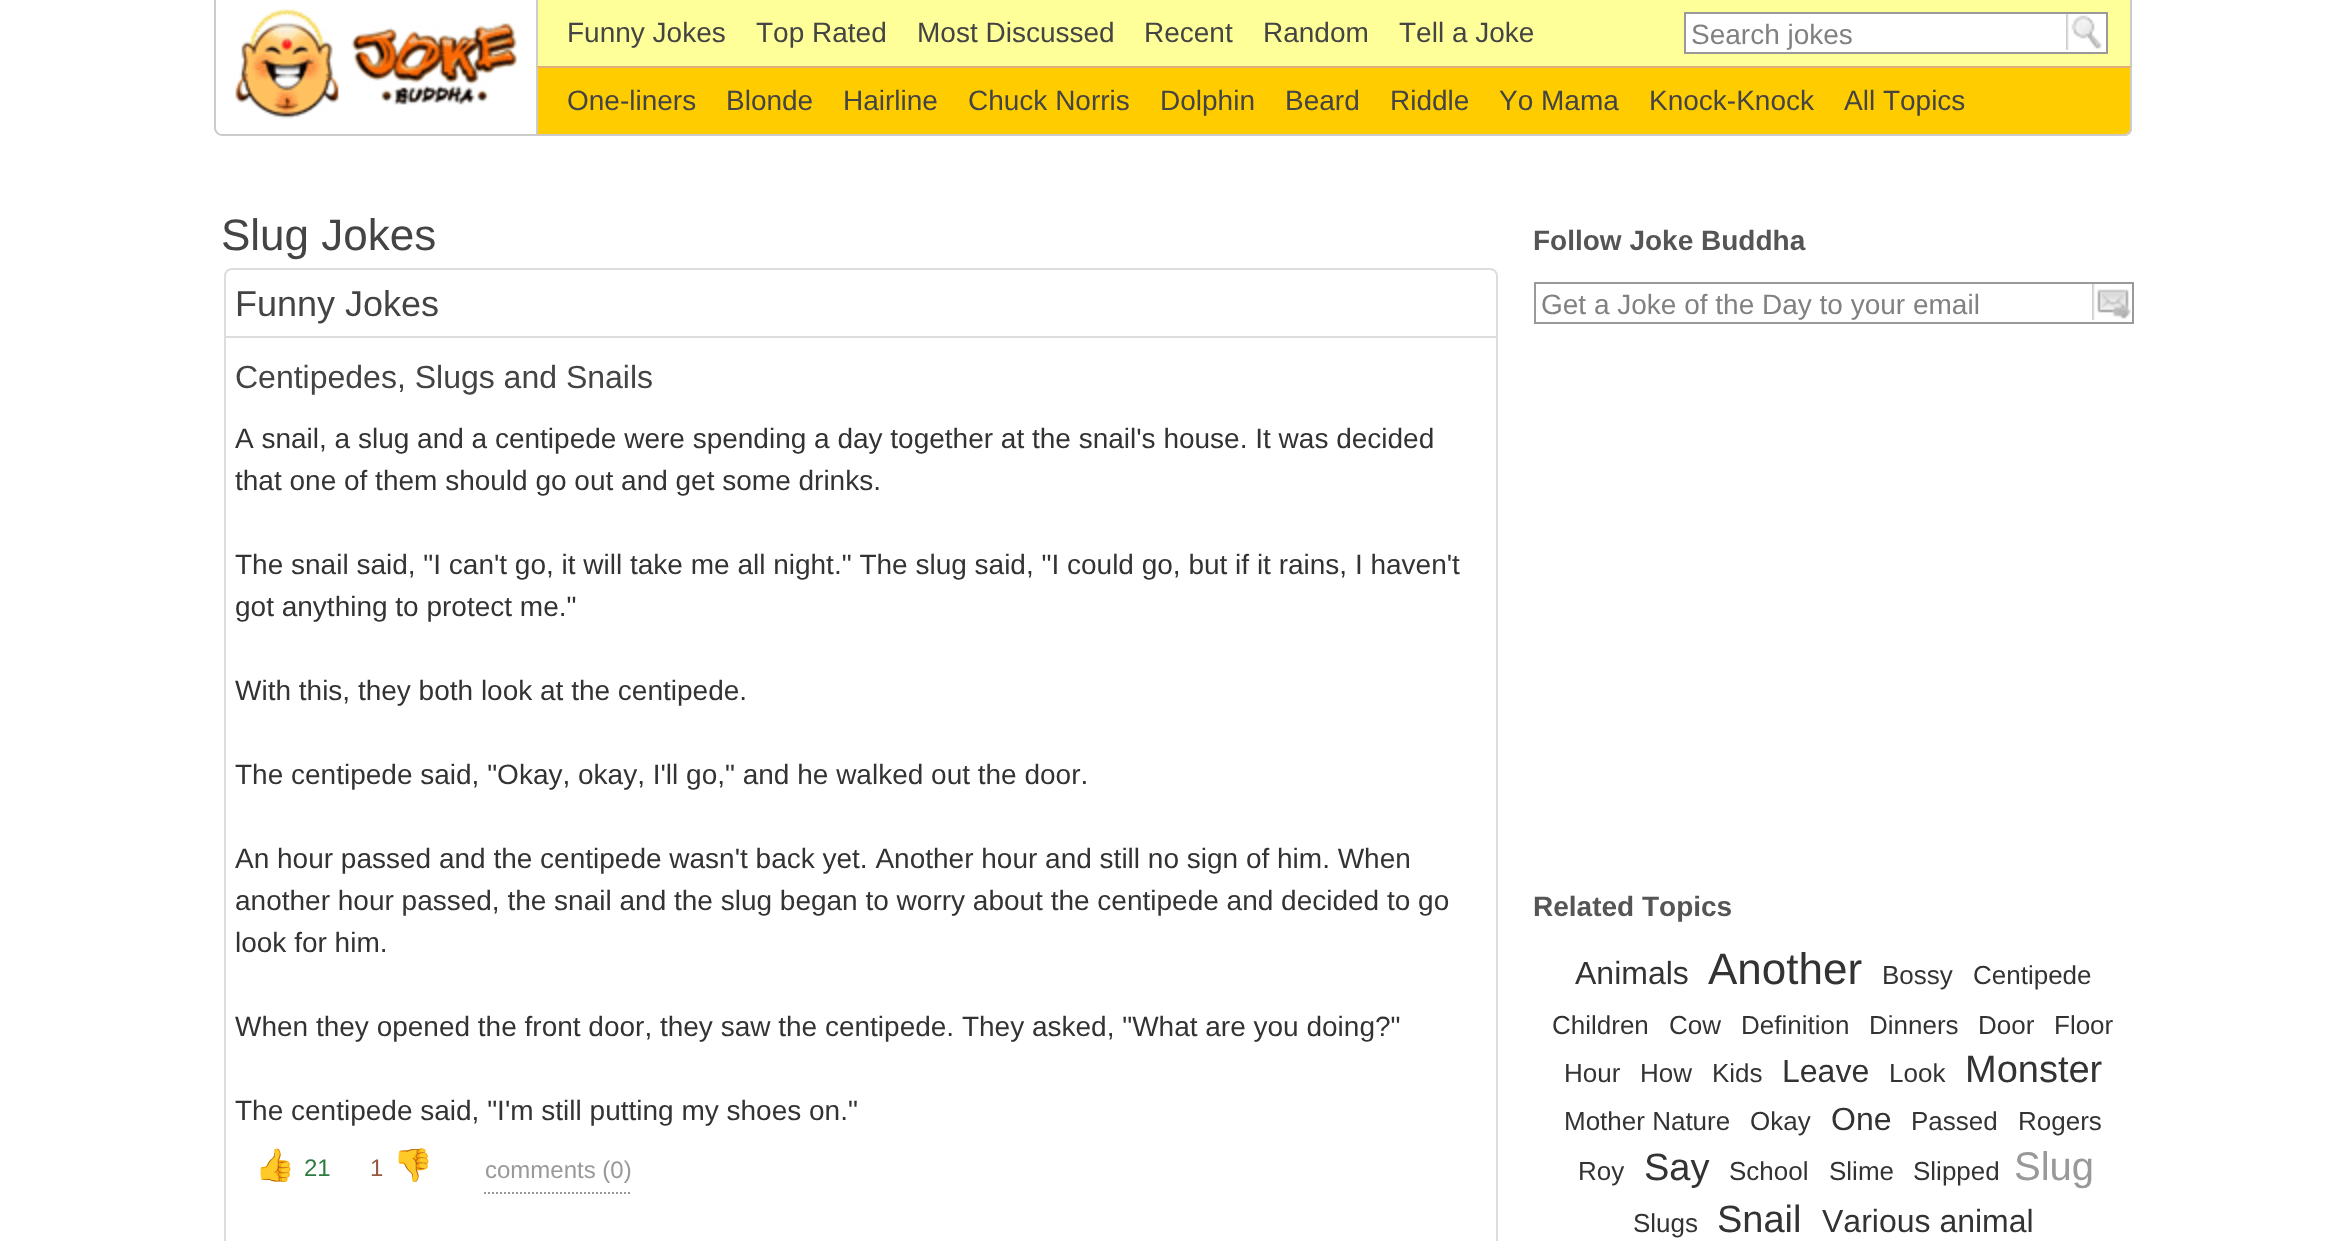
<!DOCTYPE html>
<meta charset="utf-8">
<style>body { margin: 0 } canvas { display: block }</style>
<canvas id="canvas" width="2346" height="1241"></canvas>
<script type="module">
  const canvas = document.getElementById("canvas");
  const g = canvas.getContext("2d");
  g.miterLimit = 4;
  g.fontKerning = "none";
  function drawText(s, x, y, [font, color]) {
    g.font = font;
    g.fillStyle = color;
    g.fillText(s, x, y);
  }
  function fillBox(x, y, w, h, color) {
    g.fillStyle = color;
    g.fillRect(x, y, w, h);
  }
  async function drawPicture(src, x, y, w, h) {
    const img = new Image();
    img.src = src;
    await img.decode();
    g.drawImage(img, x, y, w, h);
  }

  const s1 = ["28px Liberation Sans", "#444444"];
  const s2 = ["28px Liberation Sans", "#828180"];
  const s3 = ["44px Liberation Sans", "#444444"];
  const s4 = ["36px Liberation Sans", "#444444"];
  const s5 = ["32px Liberation Sans", "#444444"];
  const s6 = ["28px Liberation Sans", "#333333"];
  const s7 = ["32px Noto Color Emoji", "#2D7B40"];
  const s8 = ["24px Liberation Sans", "#2D7B40"];
  const s9 = ["24px Liberation Sans", "#955942"];
  const s10 = ["32px Noto Color Emoji", "#955942"];
  const s11 = ["24px Liberation Sans", "#999999"];
  const s12 = ["bold 28px Liberation Sans", "#555555"];
  const s13 = ["32px Liberation Sans", "#333333"];
  const s14 = ["44px Liberation Sans", "#333333"];
  const s15 = ["26px Liberation Sans", "#333333"];
  const s16 = ["38px Liberation Sans", "#333333"];
  const s17 = ["40px Liberation Sans", "#999999"];

  fillBox(0, 0, 2346, 1241, "#FFFFFF");
  await drawPicture("pic1.png", 235, 9, 283, 110);
  g.fillStyle = "#CCCCCC";
  g.beginPath();
  g.moveTo(214, 0);
  g.lineTo(536, 0);
  g.lineTo(536, 136);
  g.lineTo(222, 136);
  g.bezierCurveTo(218, 136, 214, 132, 214, 128);
  g.closePath();
  g.moveTo(216, 0);
  g.lineTo(536, 0);
  g.lineTo(536, 134);
  g.lineTo(222, 134);
  g.bezierCurveTo(219, 134, 216, 131, 216, 128);
  g.closePath();
  g.fill("evenodd");
  fillBox(538, 0, 1592, 66, "#FEFF99");
  fillBox(2130, 0, 2, 66, "#CCCCCC");
  fillBox(536, 0, 2, 66, "#CCCCCC");
  drawText("Funny Jokes", 567, 42, s1);
  drawText("Top Rated", 756, 42, s1);
  drawText("Most Discussed", 917, 42, s1);
  drawText("Recent", 1144, 42, s1);
  drawText("Random", 1263, 42, s1);
  drawText("Tell a Joke", 1399, 42, s1);
  g.fillStyle = "#FFFFFF";
  g.beginPath();
  g.rect(1685, 13, 422, 40);
  g.fill();
  g.strokeStyle = "#999999";
  g.lineWidth = 2;
  g.stroke();
  drawText("Search jokes", 1691, 44, s2);
  await drawPicture("pic2.png", 2066, 14, 37, 36);
  g.fillStyle = "#FFCC00";
  g.beginPath();
  g.roundRect(536, 66, 1596, 70, [0, 0, 8, 0]);
  g.fill();
  g.fillStyle = "#E3AE7A";
  g.beginPath();
  g.moveTo(536, 66);
  g.lineTo(538, 68);
  g.lineTo(2130, 68);
  g.lineTo(2132, 66);
  g.closePath();
  g.fill();
  g.fillStyle = "#CCCCCC";
  g.beginPath();
  g.moveTo(2132, 66);
  g.lineTo(2130, 68);
  g.lineTo(2130, 128);
  g.bezierCurveTo(2130, 130, 2129, 131, 2128, 132);
  g.lineTo(2130, 134);
  g.bezierCurveTo(2131, 132, 2132, 130, 2132, 128);
  g.closePath();
  g.fill();
  g.beginPath();
  g.moveTo(2124, 136);
  g.bezierCurveTo(2126, 136, 2128, 135, 2130, 134);
  g.lineTo(2128, 132);
  g.bezierCurveTo(2127, 133, 2126, 134, 2124, 134);
  g.lineTo(538, 134);
  g.lineTo(536, 136);
  g.closePath();
  g.fill();
  g.beginPath();
  g.moveTo(536, 66);
  g.lineTo(536, 136);
  g.lineTo(538, 134);
  g.lineTo(538, 68);
  g.closePath();
  g.fill();
  drawText("One-liners", 567, 110, s1);
  drawText("Blonde", 726, 110, s1);
  drawText("Hairline", 843, 110, s1);
  drawText("Chuck Norris", 968, 110, s1);
  drawText("Dolphin", 1160, 110, s1);
  drawText("Beard", 1285, 110, s1);
  drawText("Riddle", 1390, 110, s1);
  drawText("Yo Mama", 1499, 110, s1);
  drawText("Knock-Knock", 1649, 110, s1);
  drawText("All Topics", 1844, 110, s1);
  drawText("Slug Jokes", 221, 250, s3);
  g.beginPath();
  g.roundRect(225, 269, 1272, 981, 7);
  g.strokeStyle = "#DDDDDD";
  g.stroke();
  fillBox(226, 336, 1270, 2, "#DDDDDD");
  drawText("Funny Jokes", 235, 316, s4);
  drawText("Centipedes, Slugs and Snails", 235, 388, s5);
  drawText("A snail, a slug and a centipede were spending a day together at the snail's house. It was decided", 235, 448, s6);
  drawText("that one of them should go out and get some drinks.", 235, 490, s6);
  drawText("The snail said, \"I can't go, it will take me all night.\" The slug said, \"I could go, but if it rains, I haven't", 235, 574, s6);
  drawText("got anything to protect me.\"", 235, 616, s6);
  drawText("With this, they both look at the centipede.", 235, 700, s6);
  drawText("The centipede said, \"Okay, okay, I'll go,\" and he walked out the door.", 235, 784, s6);
  drawText("An hour passed and the centipede wasn't back yet. Another hour and still no sign of him. When", 235, 868, s6);
  drawText("another hour passed, the snail and the slug began to worry about the centipede and decided to go", 235, 910, s6);
  drawText("look for him.", 235, 952, s6);
  drawText("When they opened the front door, they saw the centipede. They asked, \"What are you doing?\"", 235, 1036, s6);
  drawText("The centipede said, \"I'm still putting my shoes on.\"", 235, 1120, s6);
  drawText("👍", 255, 1176, s7);
  drawText("21", 304, 1176, s8);
  drawText("1", 370, 1176, s9);
  drawText("👎", 393, 1176, s10);
  g.beginPath();
  g.moveTo(484, 1193);
  g.lineTo(632, 1193);
  g.strokeStyle = "#999999";
  g.setLineDash([2, 2]);
  g.stroke();
  drawText("comments (0)", 485, 1178, s11);
  drawText("Follow Joke Buddha", 1533, 250, s12);
  g.setLineDash([]);
  g.strokeRect(1535, 283, 598, 40);
  drawText("Get a Joke of the Day to your email", 1541, 314, s2);
  await drawPicture("pic3.png", 2092, 284, 39, 36);
  drawText("Related Topics", 1533, 916, s12);
  drawText("Animals", 1575, 984, s13);
  drawText("Another", 1708, 984, s14);
  drawText("Bossy", 1882, 984, s15);
  drawText("Centipede", 1973, 984, s15);
  drawText("Children", 1552, 1034, s15);
  drawText("Cow", 1669, 1034, s15);
  drawText("Definition", 1741, 1034, s15);
  drawText("Dinners", 1869, 1034, s15);
  drawText("Door", 1978, 1034, s15);
  drawText("Floor", 2054, 1034, s15);
  drawText("Hour", 1564, 1082, s15);
  drawText("How", 1640, 1082, s15);
  drawText("Kids", 1712, 1082, s15);
  drawText("Leave", 1782, 1082, s13);
  drawText("Look", 1889, 1082, s15);
  drawText("Monster", 1965, 1082, s16);
  drawText("Mother Nature", 1564, 1130, s15);
  drawText("Okay", 1750, 1130, s15);
  drawText("One", 1831, 1130, s13);
  drawText("Passed", 1911, 1130, s15);
  drawText("Rogers", 2018, 1130, s15);
  drawText("Roy", 1578, 1180, s15);
  drawText("Say", 1644, 1180, s16);
  drawText("School", 1729, 1180, s15);
  drawText("Slime", 1829, 1180, s15);
  drawText("Slipped", 1913, 1180, s15);
  drawText("Slug", 2014, 1180, s17);
  drawText("Slugs", 1633, 1232, s15);
  drawText("Snail", 1717, 1232, s16);
  drawText("Various animal", 1822, 1232, s13);
</script>
